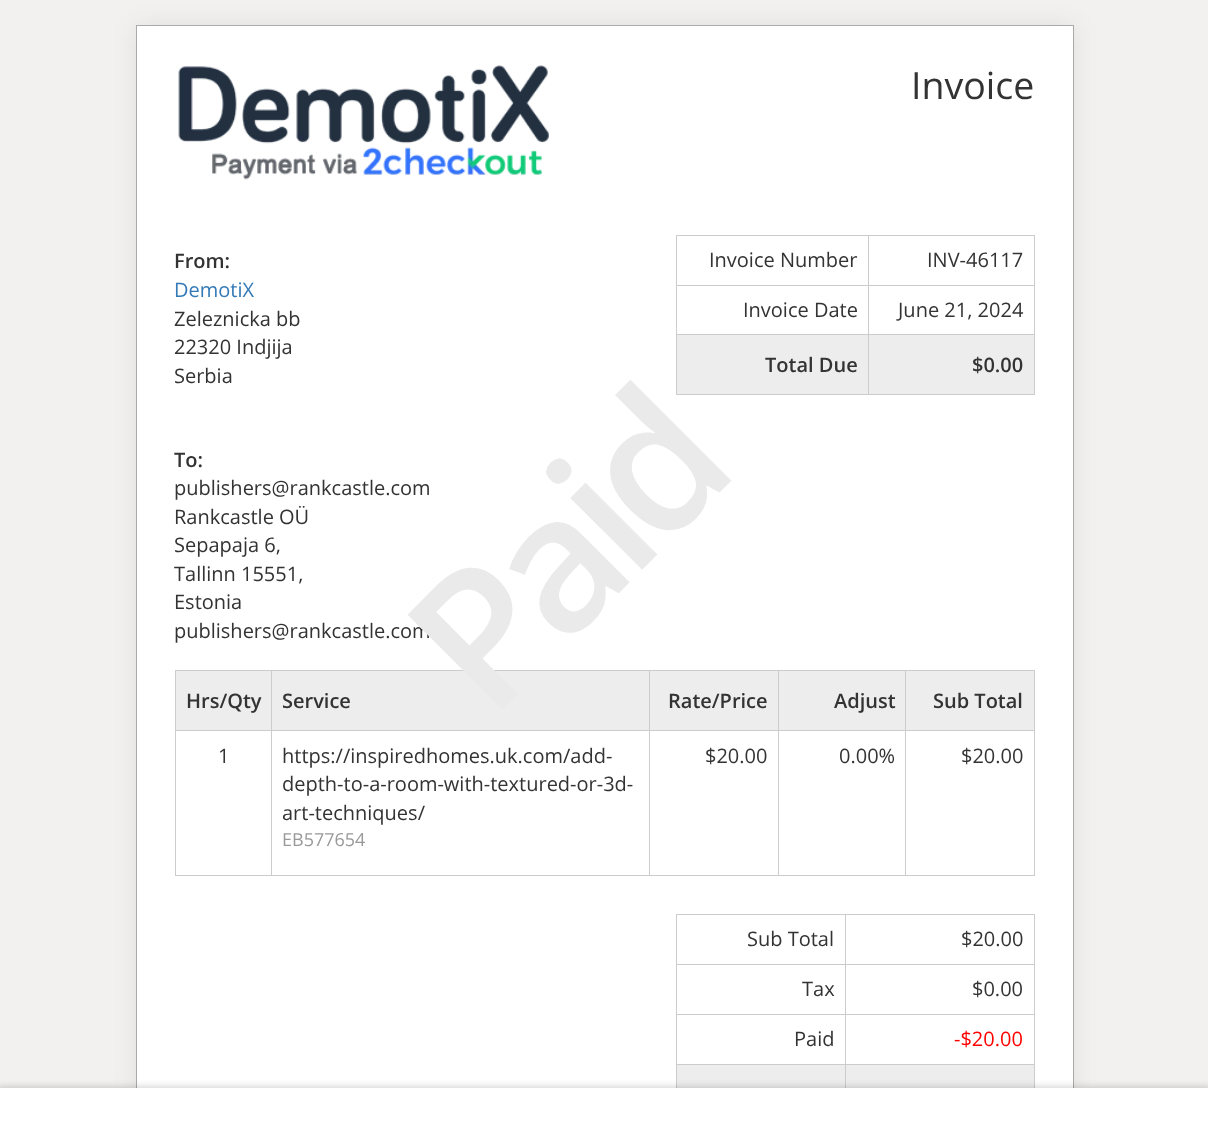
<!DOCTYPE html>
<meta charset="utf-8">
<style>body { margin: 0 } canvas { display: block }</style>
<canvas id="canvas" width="1208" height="1121"></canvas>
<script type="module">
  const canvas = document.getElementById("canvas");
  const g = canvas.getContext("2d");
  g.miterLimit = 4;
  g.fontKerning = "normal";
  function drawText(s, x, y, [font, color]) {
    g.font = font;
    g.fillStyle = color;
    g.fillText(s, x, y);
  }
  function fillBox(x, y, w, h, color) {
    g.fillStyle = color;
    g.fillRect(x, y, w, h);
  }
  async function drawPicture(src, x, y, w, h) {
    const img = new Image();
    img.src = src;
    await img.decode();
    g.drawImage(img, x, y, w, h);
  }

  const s1 = ["37.5px Open Sans", "#333333"];
  const s2 = ["600 20px Open Sans", "#333333"];
  const s3 = ["20px Open Sans", "#337AB7"];
  const s4 = ["20px Open Sans", "#333333"];
  const s5 = ["18px Open Sans", "#999999"];
  const s6 = ["20px Open Sans", "#FF0000"];

  fillBox(0, 0, 1208, 1121, "#F2F1EF");
  g.fillStyle = "rgba(0, 0, 0, 0.07)";
  g.filter = "blur(12.5px)";
  g.beginPath();
  g.rect(136, 25, 938, 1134);
  g.fill();
  g.filter = "none";
  fillBox(137, 26, 936, 1062, "#FFFFFF");
  g.strokeStyle = "#AAAAAA";
  g.strokeRect(136.5, 25.5, 937, 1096);
  await drawPicture("pic1.png", 178, 65, 371, 115);
  drawText("Invoice", 911, 99, s1);
  drawText("From:", 174, 268, s2);
  drawText("DemotiX", 174, 297, s3);
  drawText("Zeleznicka bb", 174, 326, s4);
  drawText("22320 Indjija", 174, 354, s4);
  drawText("Serbia", 174, 383, s4);
  fillBox(676, 235, 359, 1, "#CCCCCC");
  fillBox(1034, 235, 1, 160, "#CCCCCC");
  fillBox(676, 394, 359, 1, "#CCCCCC");
  fillBox(676, 235, 1, 160, "#CCCCCC");
  drawText("Invoice Number", 709, 267, s4);
  fillBox(868, 285, 167, 1, "#CCCCCC");
  fillBox(868, 334, 167, 1, "#CCCCCC");
  fillBox(868, 334, 1, 61, "#CCCCCC");
  fillBox(676, 334, 193, 1, "#CCCCCC");
  fillBox(868, 285, 1, 50, "#CCCCCC");
  fillBox(676, 285, 193, 1, "#CCCCCC");
  fillBox(868, 235, 1, 51, "#CCCCCC");
  drawText("INV-46117", 927, 267, s4);
  drawText("Invoice Date", 743, 317, s4);
  drawText("June 21, 2024", 898, 317, s4);
  fillBox(677, 335, 191, 59, "#EDEDED");
  drawText("Total Due", 765, 372, s2);
  fillBox(869, 335, 165, 59, "#EDEDED");
  drawText("$0.00", 972, 372, s2);
  drawText("To:", 174, 467, s2);
  drawText("publishers@rankcastle.com", 174, 495, s4);
  drawText("Rankcastle OÜ", 174, 524, s4);
  drawText("Sepapaja 6,", 174, 552, s4);
  drawText("Tallinn 15551,", 174, 581, s4);
  drawText("Estonia", 174, 609, s4);
  drawText("publishers@rankcastle.com", 174, 638, s4);
  fillBox(175, 670, 860, 1, "#CCCCCC");
  fillBox(272, 671, 377, 59, "#EDEDED");
  fillBox(650, 671, 128, 59, "#EDEDED");
  fillBox(1034, 670, 1, 206, "#CCCCCC");
  fillBox(905, 730, 130, 1, "#CCCCCC");
  fillBox(175, 875, 860, 1, "#CCCCCC");
  fillBox(905, 730, 1, 146, "#CCCCCC");
  fillBox(778, 730, 128, 1, "#CCCCCC");
  fillBox(778, 730, 1, 146, "#CCCCCC");
  fillBox(649, 730, 130, 1, "#CCCCCC");
  fillBox(649, 730, 1, 146, "#CCCCCC");
  fillBox(271, 730, 379, 1, "#CCCCCC");
  fillBox(649, 670, 1, 61, "#CCCCCC");
  drawText("Rate/Price", 668, 708, s2);
  g.letterSpacing = "-12.5px";
  g.font = "600 188px Open Sans";
  g.fillStyle = "#EAEAEA";
  g.save();
  g.translate(490, 722);
  g.rotate(-45 * Math.PI / 180);
  g.fillText("Paid", 0, 0);
  g.restore();
  fillBox(175, 670, 1, 206, "#CCCCCC");
  fillBox(176, 671, 95, 59, "#EDEDED");
  g.letterSpacing = "0px";
  drawText("Hrs/Qty", 186, 708, s2);
  fillBox(271, 730, 1, 146, "#CCCCCC");
  fillBox(175, 730, 98, 1, "#CCCCCC");
  fillBox(271, 670, 1, 61, "#CCCCCC");
  drawText("Service", 282, 708, s2);
  fillBox(779, 671, 126, 59, "#EDEDED");
  fillBox(778, 670, 1, 61, "#CCCCCC");
  drawText("Adjust", 834, 708, s2);
  fillBox(906, 671, 128, 59, "#EDEDED");
  fillBox(905, 670, 1, 61, "#CCCCCC");
  drawText("Sub Total", 933, 708, s2);
  drawText("1", 218, 763, s4);
  drawText("https://inspiredhomes.uk.com/add-", 282, 763, s4);
  drawText("depth-to-a-room-with-textured-or-3d-", 282, 791, s4);
  drawText("art-techniques/", 282, 820, s4);
  drawText("EB577654", 282, 846, s5);
  drawText("$20.00", 705, 763, s4);
  drawText("0.00%", 839, 763, s4);
  drawText("$20.00", 961, 763, s4);
  fillBox(676, 914, 359, 1, "#CCCCCC");
  fillBox(1034, 914, 1, 174, "#CCCCCC");
  fillBox(676, 914, 1, 174, "#CCCCCC");
  drawText("Sub Total", 747, 946, s4);
  fillBox(845, 964, 190, 1, "#CCCCCC");
  fillBox(845, 1014, 190, 1, "#CCCCCC");
  fillBox(845, 1064, 190, 1, "#CCCCCC");
  fillBox(845, 1064, 1, 24, "#CCCCCC");
  fillBox(676, 1064, 170, 1, "#CCCCCC");
  fillBox(845, 1014, 1, 51, "#CCCCCC");
  fillBox(676, 1014, 170, 1, "#CCCCCC");
  fillBox(845, 964, 1, 51, "#CCCCCC");
  fillBox(676, 964, 170, 1, "#CCCCCC");
  fillBox(845, 914, 1, 51, "#CCCCCC");
  drawText("$20.00", 961, 946, s4);
  drawText("Tax", 802, 996, s4);
  drawText("$0.00", 972, 996, s4);
  drawText("Paid", 794, 1046, s4);
  drawText("-$20.00", 954, 1046, s6);
  fillBox(677, 1065, 168, 23, "#EDEDED");
  fillBox(846, 1065, 188, 23, "#EDEDED");
  g.fillStyle = "rgba(0, 0, 0, 0.15)";
  g.filter = "blur(3px)";
  g.beginPath();
  g.rect(-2, 1086, 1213, 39);
  g.fill();
  g.filter = "none";
  fillBox(0, 1088, 1208, 33, "#FFFFFF");
</script>
